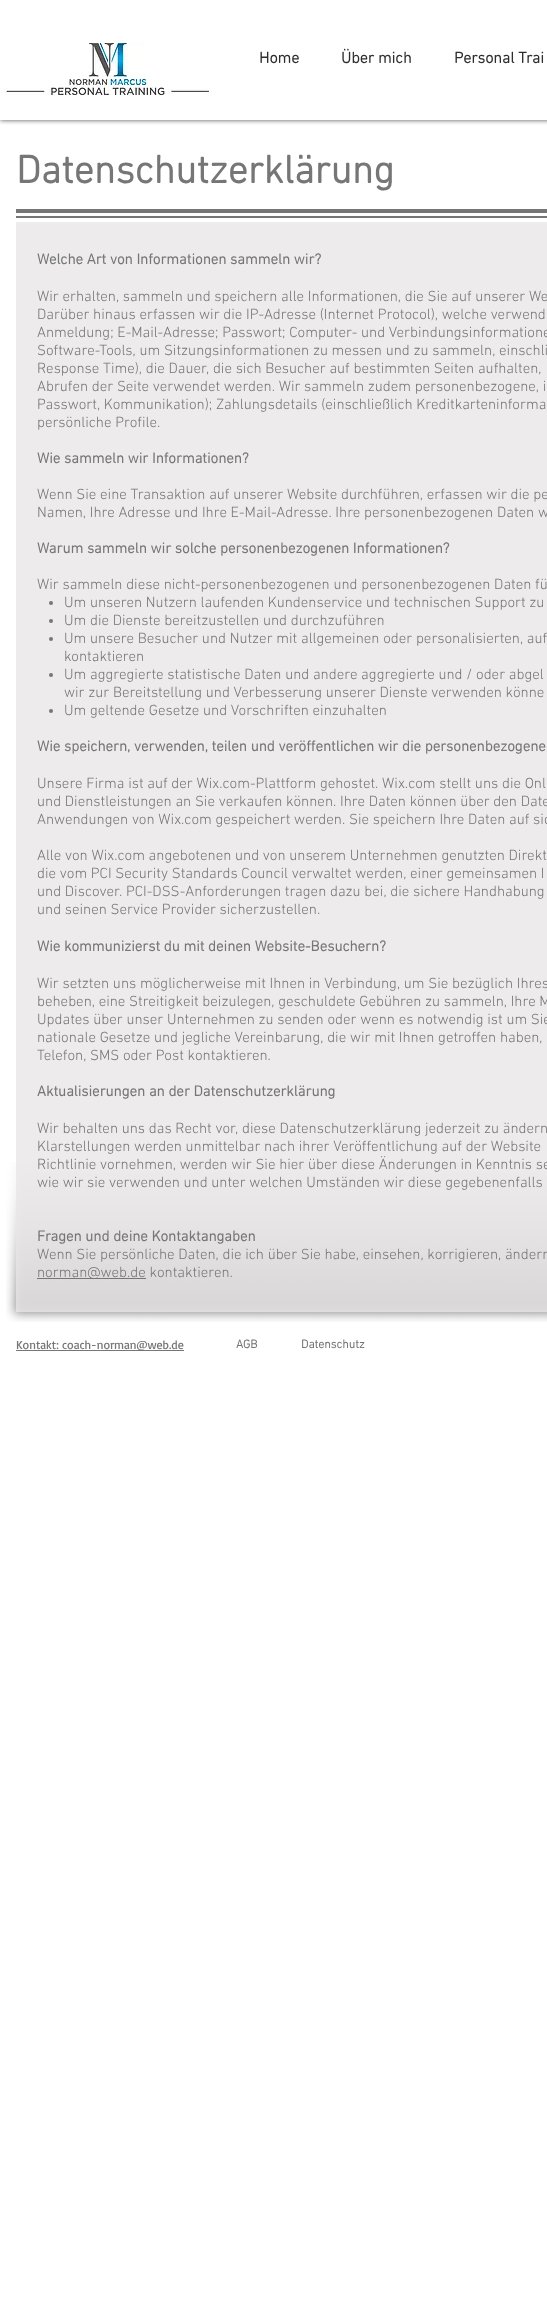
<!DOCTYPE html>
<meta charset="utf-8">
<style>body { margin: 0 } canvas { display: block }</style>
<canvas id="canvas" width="547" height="2318"></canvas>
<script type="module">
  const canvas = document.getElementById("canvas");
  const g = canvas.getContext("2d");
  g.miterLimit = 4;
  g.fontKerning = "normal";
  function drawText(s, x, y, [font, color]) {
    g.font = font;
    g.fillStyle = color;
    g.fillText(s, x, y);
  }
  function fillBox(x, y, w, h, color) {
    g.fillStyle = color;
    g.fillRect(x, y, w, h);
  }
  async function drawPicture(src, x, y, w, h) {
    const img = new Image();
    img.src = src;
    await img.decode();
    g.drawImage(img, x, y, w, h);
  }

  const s1 = ["bold 16px 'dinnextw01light'", "#2F2E2E"];
  const s2 = ["bold 40px 'dinnextw01light'", "#767676"];
  const s3 = ["bold 15px 'dinnextw01light'", "#767676"];
  const s4 = ["300 15px 'dinnextw01light'", "#767676"];
  const s5 = ["12px Basic", "#767676"];
  const s6 = ["bold 12px 'dinnextw01light'", "#767676"];

  fillBox(0, 0, 547, 2318, "#FFFFFF");
  g.save();
  g.beginPath();
  g.rect(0, 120, 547, 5);
  g.clip();
  g.fillStyle = "rgba(0, 0, 0, 0.7)";
  g.filter = "blur(2.5px)";
  g.beginPath();
  g.rect(0, 0, 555, 120);
  g.fill();
  g.filter = "none";
  g.restore();
  await drawPicture("pic1.png", 4, 41, 208, 54);
  drawText("Home", 259, 63, s1);
  drawText("Über mich", 341, 63, s1);
  drawText("Personal Trai", 454, 63, s1);
  drawText("Datenschutzerklärung", 16, 183, s2);
  fillBox(16, 209, 531, 4, "#767676");
  fillBox(16, 216, 531, 2, "#767676");
  await drawPicture("pic2.png", 6, 1162, 45, 160);
  await drawPicture("pic3.png", 51, 1162, 496, 160);
  fillBox(16, 222, 531, 1090, "rgba(232, 230, 230, 0.8)");
  drawText("Welche Art von Informationen sammeln wir?", 37, 264, s3);
  drawText("Wir erhalten, sammeln und speichern alle Informationen, die Sie auf unserer We", 37, 301, s4);
  drawText("Darüber hinaus erfassen wir die IP-Adresse (Internet Protocol), welche verwend", 37, 319, s4);
  drawText("Anmeldung; E-Mail-Adresse; Passwort; Computer- und Verbindungsinformatione", 37, 337, s4);
  drawText("Software-Tools, um Sitzungsinformationen zu messen und zu sammeln, einschli", 37, 355, s4);
  drawText("Response Time), die Dauer, die sich Besucher auf bestimmten Seiten aufhalten,", 37, 373, s4);
  drawText("Abrufen der Seite verwendet werden. Wir sammeln zudem personenbezogene, i", 37, 391, s4);
  drawText("Passwort, Kommunikation); Zahlungsdetails (einschließlich Kreditkarteninforma", 37, 409, s4);
  drawText("persönliche Profile.", 37, 427, s4);
  drawText("Wie sammeln wir Informationen?", 37, 463, s3);
  drawText("Wenn Sie eine Transaktion auf unserer Website durchführen, erfassen wir die pe", 37, 499, s4);
  drawText("Namen, Ihre Adresse und Ihre E-Mail-Adresse. Ihre personenbezogenen Daten w", 37, 517, s4);
  drawText("Warum sammeln wir solche personenbezogenen Informationen?", 37, 553, s3);
  drawText("Wir sammeln diese nicht-personenbezogenen und personenbezogenen Daten fü", 37, 589, s4);
  g.beginPath();
  g.arc(51, 603, 2, 0, Math.PI * 2);
  g.fill();
  drawText("Um unseren Nutzern laufenden Kundenservice und technischen Support zu", 64, 607, s4);
  g.beginPath();
  g.arc(51, 621, 2, 0, Math.PI * 2);
  g.fill();
  drawText("Um die Dienste bereitzustellen und durchzuführen", 64, 625, s4);
  g.beginPath();
  g.arc(51, 639, 2, 0, Math.PI * 2);
  g.fill();
  drawText("Um unsere Besucher und Nutzer mit allgemeinen oder personalisierten, auf", 64, 643, s4);
  drawText("kontaktieren", 64, 661, s4);
  g.beginPath();
  g.arc(51, 675, 2, 0, Math.PI * 2);
  g.fill();
  drawText("Um aggregierte statistische Daten und andere aggregierte und / oder abgel", 64, 679, s4);
  drawText("wir zur Bereitstellung und Verbesserung unserer Dienste verwenden könne", 64, 697, s4);
  g.beginPath();
  g.arc(51, 711, 2, 0, Math.PI * 2);
  g.fill();
  drawText("Um geltende Gesetze und Vorschriften einzuhalten", 64, 715, s4);
  drawText("Wie speichern, verwenden, teilen und veröffentlichen wir die personenbezogene", 37, 751, s3);
  drawText("Unsere Firma ist auf der Wix.com-Plattform gehostet. Wix.com stellt uns die Onli", 37, 788, s4);
  drawText("und Dienstleistungen an Sie verkaufen können. Ihre Daten können über den Date", 37, 806, s4);
  drawText("Anwendungen von Wix.com gespeichert werden. Sie speichern Ihre Daten auf sic", 37, 824, s4);
  drawText("Alle von Wix.com angebotenen und von unserem Unternehmen genutzten Direkt", 37, 860, s4);
  drawText("die vom PCI Security Standards Council verwaltet werden, einer gemeinsamen I", 37, 878, s4);
  drawText("und Discover. PCI-DSS-Anforderungen tragen dazu bei, die sichere Handhabung", 37, 896, s4);
  drawText("und seinen Service Provider sicherzustellen.", 37, 914, s4);
  drawText("Wie kommunizierst du mit deinen Website-Besuchern?", 37, 951, s3);
  drawText("Wir setzten uns möglicherweise mit Ihnen in Verbindung, um Sie bezüglich Ihres", 37, 988, s4);
  drawText("beheben, eine Streitigkeit beizulegen, geschuldete Gebühren zu sammeln, Ihre M", 37, 1006, s4);
  drawText("Updates über unser Unternehmen zu senden oder wenn es notwendig ist um Sie", 37, 1024, s4);
  drawText("nationale Gesetze und jegliche Vereinbarung, die wir mit Ihnen getroffen haben,", 37, 1042, s4);
  drawText("Telefon, SMS oder Post kontaktieren.", 37, 1060, s4);
  drawText("Aktualisierungen an der Datenschutzerklärung", 37, 1096, s3);
  drawText("Wir behalten uns das Recht vor, diese Datenschutzerklärung jederzeit zu ändern", 37, 1133, s4);
  drawText("Klarstellungen werden unmittelbar nach ihrer Veröffentlichung auf der Website", 37, 1151, s4);
  drawText("Richtlinie vornehmen, werden wir Sie hier über diese Änderungen in Kenntnis se", 37, 1169, s4);
  drawText("wie wir sie verwenden und unter welchen Umständen wir diese gegebenenfalls", 37, 1187, s4);
  drawText("Fragen und deine Kontaktangaben", 37, 1241, s3);
  drawText("Wenn Sie persönliche Daten, die ich über Sie habe, einsehen, korrigieren, ändern", 37, 1259, s4);
  fillBox(37, 1278, 109, 1, "#767676");
  drawText("norman@web.de kontaktieren.", 37, 1277, s4);
  fillBox(16, 1350, 168, 1, "#767676");
  drawText("Kontakt: coach-norman@web.de", 16, 1349, s5);
  drawText("AGB", 236, 1348, s6);
  drawText("Datenschutz", 301, 1348, s6);
</script>
